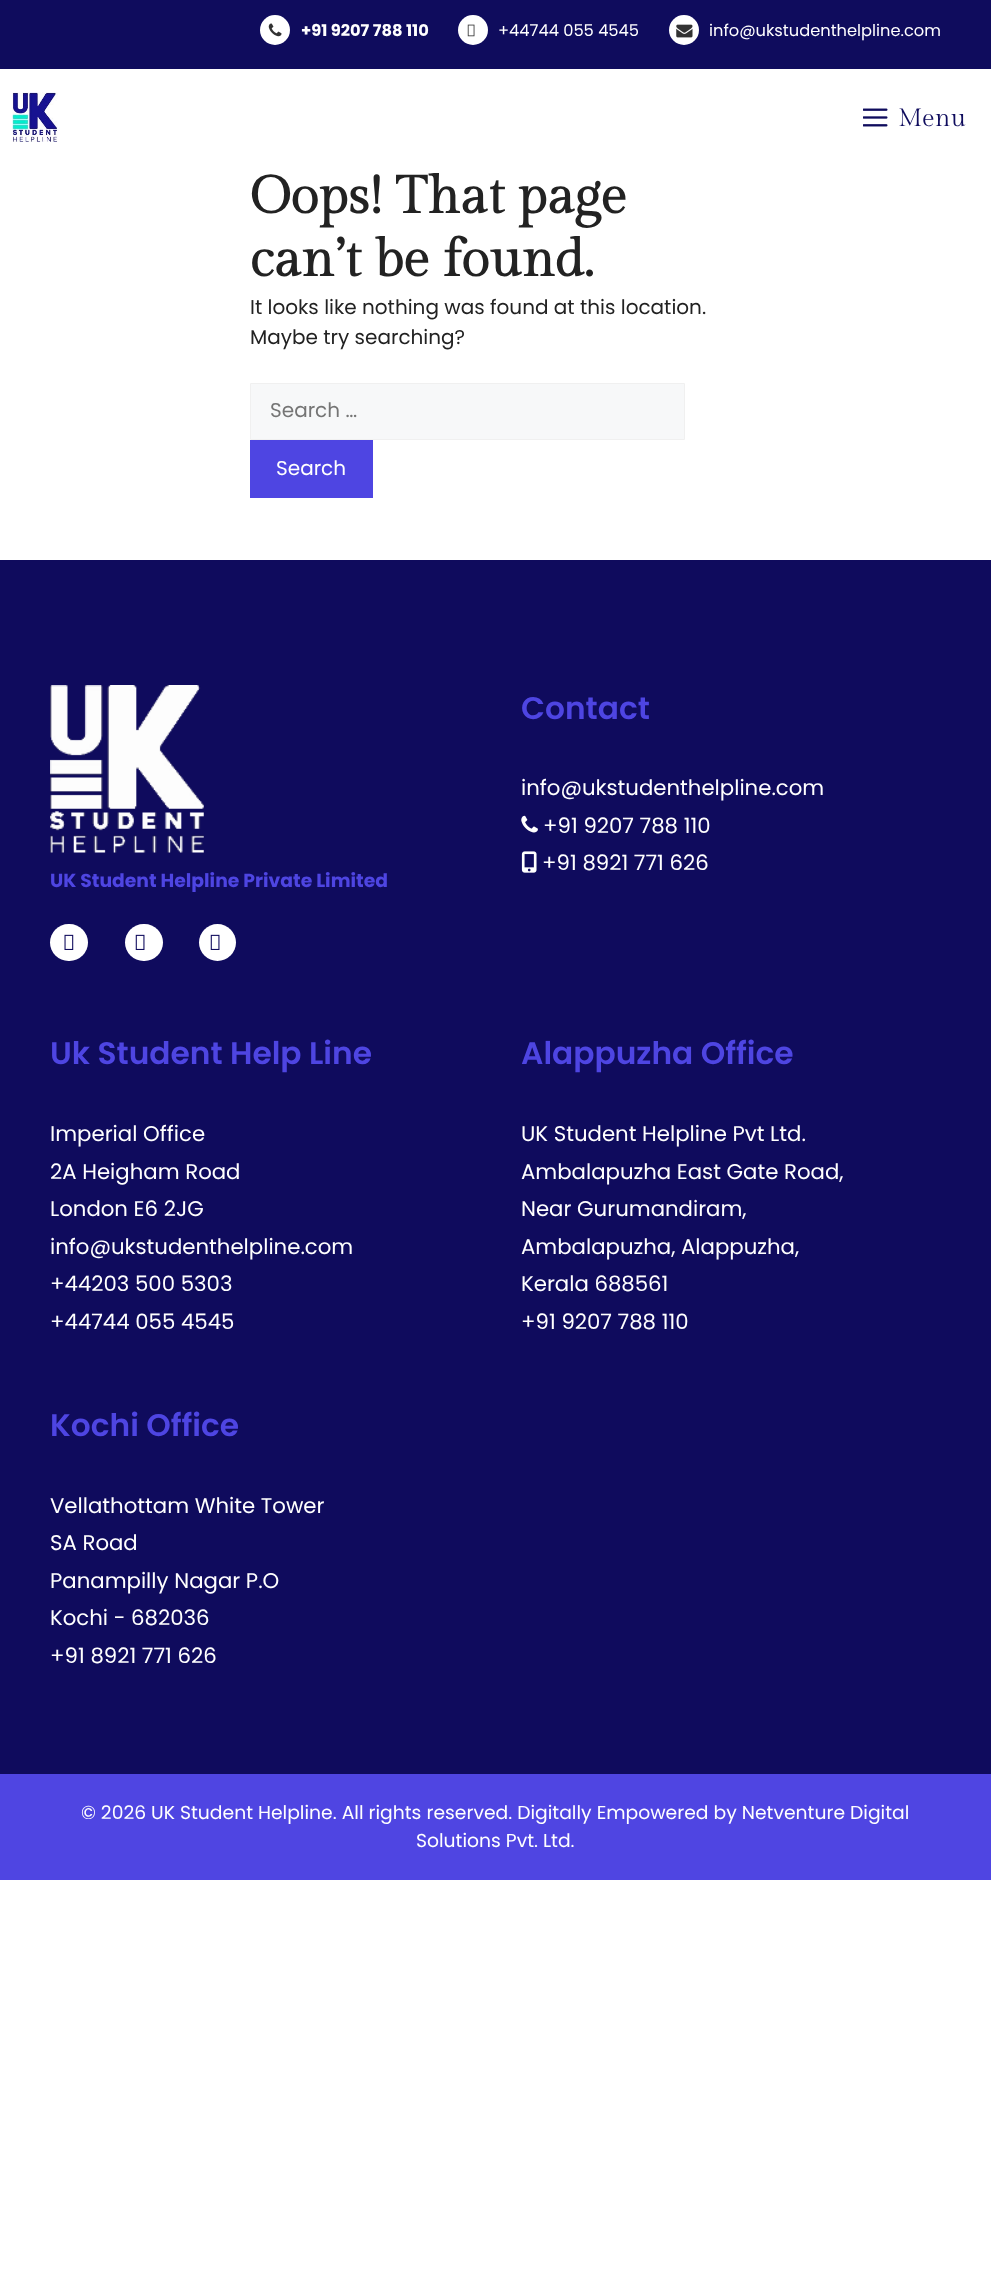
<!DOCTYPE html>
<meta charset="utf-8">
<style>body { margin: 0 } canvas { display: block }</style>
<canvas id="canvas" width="991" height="2279"></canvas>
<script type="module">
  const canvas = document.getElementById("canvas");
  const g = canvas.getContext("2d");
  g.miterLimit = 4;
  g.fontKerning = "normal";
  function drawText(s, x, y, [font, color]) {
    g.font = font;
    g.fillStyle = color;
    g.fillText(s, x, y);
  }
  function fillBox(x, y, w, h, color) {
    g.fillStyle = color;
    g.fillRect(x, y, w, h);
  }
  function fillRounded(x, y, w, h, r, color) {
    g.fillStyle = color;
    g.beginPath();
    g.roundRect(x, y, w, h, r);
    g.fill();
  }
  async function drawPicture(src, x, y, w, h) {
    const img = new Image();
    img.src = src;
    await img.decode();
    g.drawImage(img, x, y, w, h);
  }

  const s1 = ["bold 16.25px Poppins", "#FFFFFF"];
  const s2 = ["16.25px Poppins", "#FFFFFF"];
  const s3 = ["25px Gilda Display", "#0F0C5D"];
  const s4 = ["bold 52.5px Gilda Display", "#222222"];
  const s5 = ["20px Poppins", "#222222"];
  const s6 = ["20px Poppins", "#757575"];
  const s7 = ["20px Poppins", "#FFFFFF"];
  const s8 = ["600 31.25px Poppins", "#4E45E2"];
  const s9 = ["21.25px Poppins", "#FFFFFF"];
  const s10 = ["bold 18.75px Poppins", "#4E45E2"];
  const s11 = ["18.75px Poppins", "#FFFFFF"];

  fillBox(0, 0, 991, 2279, "#FFFFFF");
  fillBox(0, 0, 991, 69, "#0F0C5D");
  g.fillStyle = "#FFFFFF";
  g.beginPath();
  g.arc(275, 30, 15, 0, Math.PI * 2);
  g.fill();
  await drawPicture("pic1.png", 268, 23, 14, 14);
  drawText("+91 9207 788 110", 301, 36, s1);
  g.beginPath();
  g.arc(473, 30, 15, 0, Math.PI * 2);
  g.fill();
  await drawPicture("pic2.png", 467, 24, 8, 13);
  drawText("+44744 055 4545", 498, 36, s2);
  g.beginPath();
  g.arc(684, 30, 15, 0, Math.PI * 2);
  g.fill();
  await drawPicture("pic3.png", 676, 24, 17, 14);
  drawText("info@ukstudenthelpline.com", 709, 36, s2);
  await drawPicture("pic4.png", 12, 92, 46, 50);
  await drawPicture("pic5.png", 863, 108, 25, 19);
  drawText("Menu", 898, 126, s3);
  drawText("Oops! That page", 250, 213, s4);
  drawText("can’t be found.", 250, 276, s4);
  drawText("It looks like nothing was found at this location.", 250, 314, s5);
  drawText("Maybe try searching?", 250, 344, s5);
  g.fillStyle = "#F7F8F9";
  g.beginPath();
  g.rect(250.5, 383.5, 434, 56);
  g.fill();
  g.strokeStyle = "#F0F0F0";
  g.stroke();
  drawText("Search …", 270, 417, s6);
  fillBox(250, 440, 123, 58, "#4E45E2");
  drawText("Search", 276, 475, s7);
  fillBox(0, 560, 991, 1214, "#0F0B5D");
  drawText("Contact", 521, 719, s8);
  drawText("info@ukstudenthelpline.com", 521, 795, s9);
  await drawPicture("pic6.png", 521, 815, 17, 18);
  drawText("+91 9207 788 110", 543, 833, s9);
  await drawPicture("pic7.png", 521, 851, 16, 22);
  drawText("+91 8921 771 626", 542, 870, s9);
  await drawPicture("pic8.png", 50, 685, 154, 168);
  drawText("UK Student Helpline Private Limited", 50, 887, s10);
  fillRounded(50, 924, 38, 37, 18.5, "#FFFFFF");
  await drawPicture("pic9.png", 64, 934, 10, 16);
  fillRounded(125, 924, 38, 37, 18.5, "#FFFFFF");
  await drawPicture("pic10.png", 135, 934, 10, 16);
  g.beginPath();
  g.arc(217.5, 942.5, 18.5, 0, Math.PI * 2);
  g.fill();
  await drawPicture("pic10.png", 210, 934, 10, 16);
  drawText("Uk Student Help Line", 50, 1064, s8);
  drawText("Imperial Office", 50, 1141, s9);
  drawText("2A Heigham Road", 50, 1179, s9);
  drawText("London E6 2JG", 50, 1216, s9);
  drawText("info@ukstudenthelpline.com", 50, 1254, s9);
  drawText("+44203 500 5303", 50, 1291, s9);
  drawText("+44744 055 4545", 50, 1329, s9);
  drawText("Alappuzha Office", 521, 1064, s8);
  drawText("UK Student Helpline Pvt Ltd.", 521, 1141, s9);
  drawText("Ambalapuzha East Gate Road,", 521, 1179, s9);
  drawText("Near Gurumandiram,", 521, 1216, s9);
  drawText("Ambalapuzha, Alappuzha,", 521, 1254, s9);
  drawText("Kerala 688561", 521, 1291, s9);
  drawText("+91 9207 788 110", 521, 1329, s9);
  drawText("Kochi Office", 50, 1436, s8);
  drawText("Vellathottam White Tower", 50, 1513, s9);
  drawText("SA Road", 50, 1550, s9);
  drawText("Panampilly Nagar P.O", 50, 1588, s9);
  drawText("Kochi - 682036", 50, 1625, s9);
  drawText("+91 8921 771 626", 50, 1663, s9);
  fillBox(0, 1774, 991, 106, "#4F45E2");
  drawText("© 2026 UK Student Helpline. All rights reserved. Digitally Empowered by Netventure Digital", 81, 1819, s11);
  drawText("Solutions Pvt. Ltd.", 416, 1847, s11);
</script>
